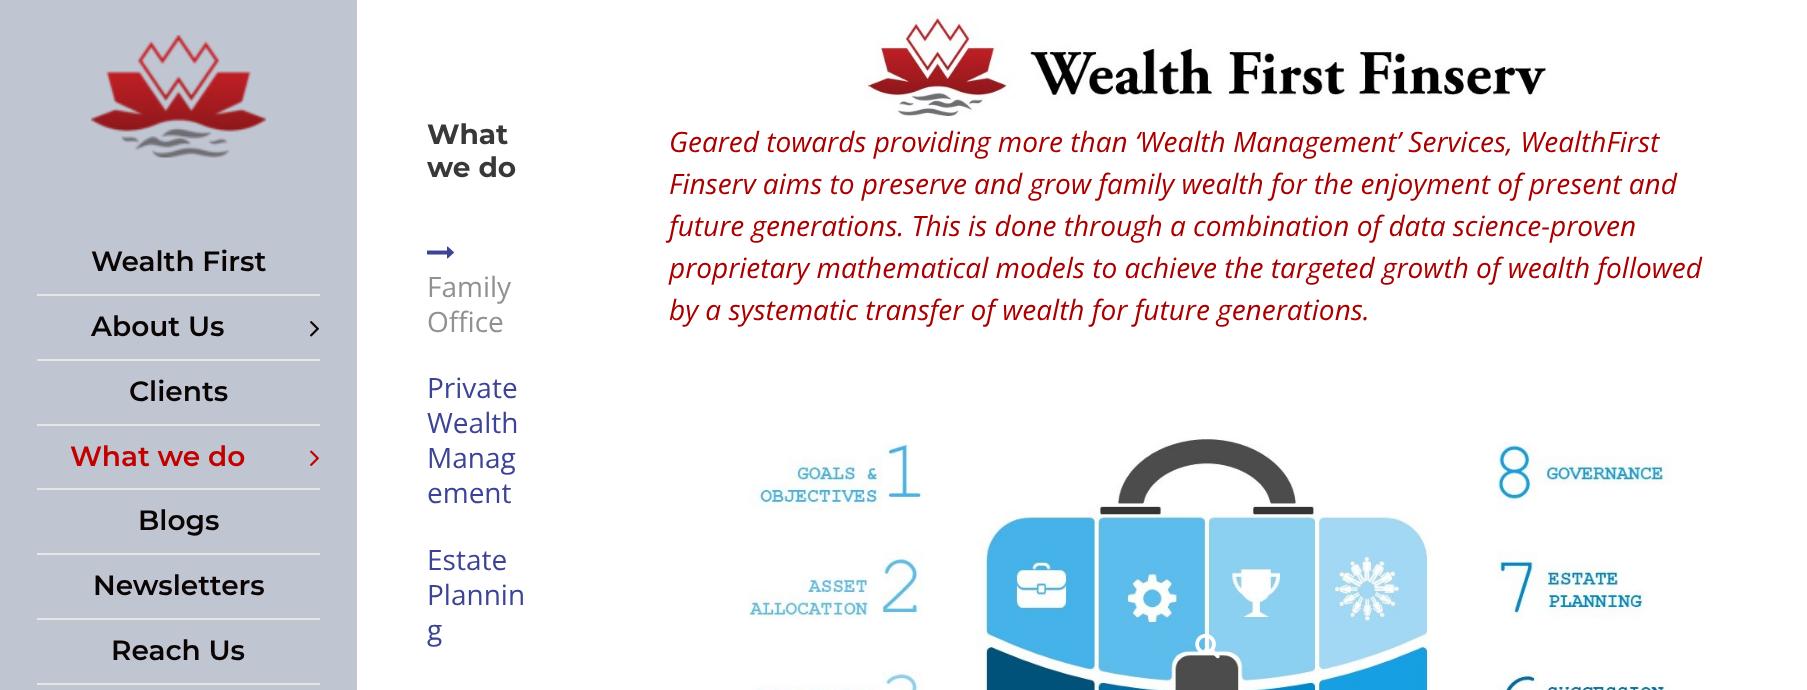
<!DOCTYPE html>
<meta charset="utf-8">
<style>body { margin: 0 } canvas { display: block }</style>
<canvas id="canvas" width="1807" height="690"></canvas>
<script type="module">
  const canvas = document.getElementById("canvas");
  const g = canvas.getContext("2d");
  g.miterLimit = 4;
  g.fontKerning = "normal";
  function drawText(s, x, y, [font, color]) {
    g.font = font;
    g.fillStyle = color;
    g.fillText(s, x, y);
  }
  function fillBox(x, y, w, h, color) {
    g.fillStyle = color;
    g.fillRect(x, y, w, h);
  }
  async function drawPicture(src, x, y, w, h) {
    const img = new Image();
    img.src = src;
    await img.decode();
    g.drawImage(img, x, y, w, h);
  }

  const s1 = ["600 28px Montserrat", "#0A0404"];
  const s2 = ["600 28px Montserrat", "#C10000"];
  const s3 = ["bold 28px Montserrat", "#383838"];
  const s4 = ["28px Open Sans", "#919192"];
  const s5 = ["28px Open Sans", "#3E4494"];
  const s6 = ["italic 28px Open Sans", "#A80000"];

  fillBox(0, 0, 1807, 690, "#FFFFFF");
  fillBox(0, 0, 357, 690, "#C0C5D2");
  await drawPicture("pic1.png", 91, 35, 175, 123);
  fillBox(37, 294, 283, 2, "#E6E6E6");
  drawText("Wealth First", 91, 271, s1);
  fillBox(37, 359, 283, 2, "#E6E6E6");
  drawText("About Us", 91, 336, s1);
  await drawPicture("pic2.png", 310, 321, 9, 16);
  fillBox(37, 424, 283, 2, "#E6E6E6");
  drawText("Clients", 129, 401, s1);
  fillBox(37, 488, 283, 2, "#E6E6E6");
  drawText("What we do", 70, 466, s2);
  await drawPicture("pic3.png", 310, 450, 9, 16);
  fillBox(37, 553, 283, 2, "#E6E6E6");
  drawText("Blogs", 138, 530, s1);
  fillBox(37, 618, 283, 2, "#E6E6E6");
  drawText("Newsletters", 93, 595, s1);
  fillBox(37, 683, 283, 2, "#E6E6E6");
  drawText("Reach Us", 111, 660, s1);
  drawText("What", 427, 144, s3);
  drawText("we do", 427, 177, s3);
  await drawPicture("pic4.png", 427, 246, 27, 13);
  drawText("Family", 427, 297, s4);
  drawText("Office", 427, 332, s4);
  drawText("Private", 427, 398, s5);
  drawText("Wealth", 427, 433, s5);
  drawText("Manag", 427, 468, s5);
  drawText("ement", 427, 503, s5);
  drawText("Estate", 427, 570, s5);
  drawText("Plannin", 427, 605, s5);
  drawText("g", 427, 640, s5);
  await drawPicture("pic5.png", 866, 12, 681, 105);
  drawText("Geared towards providing more than ‘Wealth Management’ Services, WealthFirst", 669, 152, s6);
  drawText("Finserv aims to preserve and grow family wealth for the enjoyment of present and", 669, 194, s6);
  drawText("future generations. This is done through a combination of data science-proven", 669, 236, s6);
  drawText("proprietary mathematical models to achieve the targeted growth of wealth followed", 669, 278, s6);
  drawText("by a systematic transfer of wealth for future generations.", 669, 320, s6);
  await drawPicture("pic6.png", 748, 438, 923, 252);
  await drawPicture("pic7.png", 1195, 634, 25, 25);
</script>
